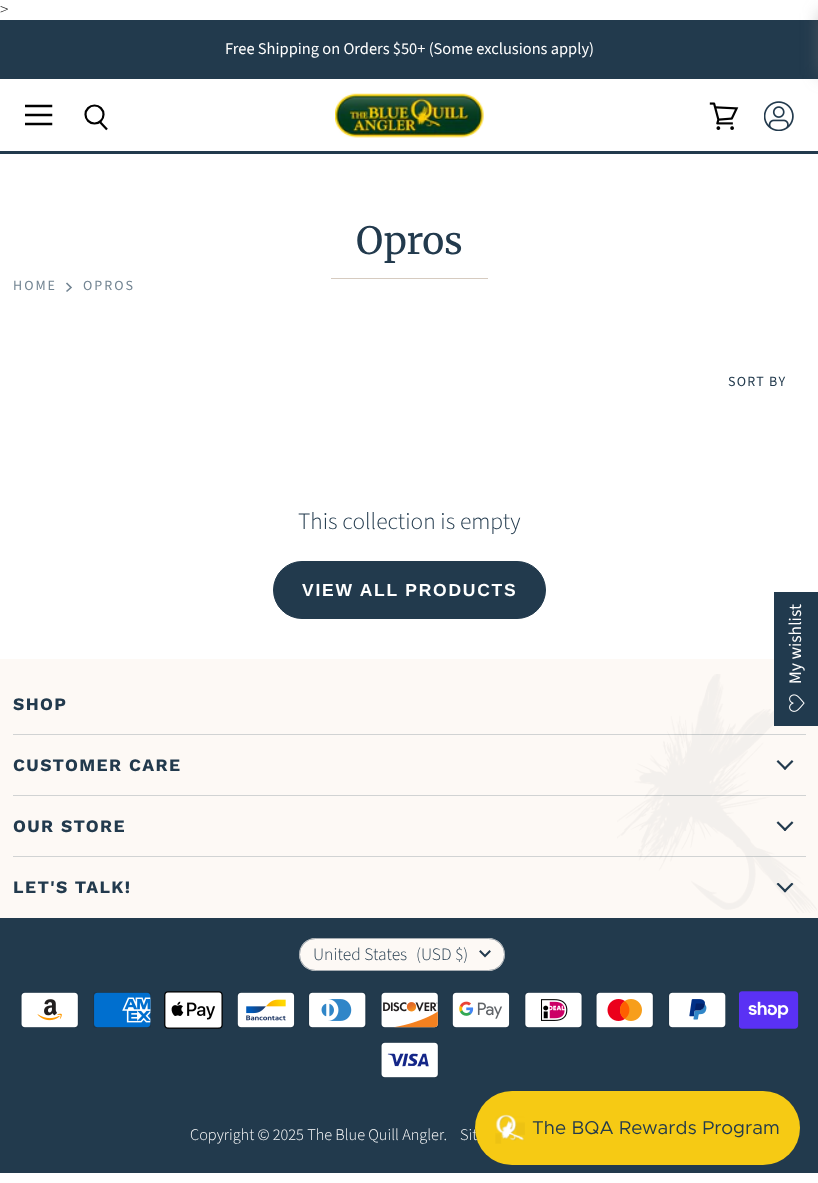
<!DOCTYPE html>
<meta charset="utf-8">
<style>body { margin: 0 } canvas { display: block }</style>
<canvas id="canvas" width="818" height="1183"></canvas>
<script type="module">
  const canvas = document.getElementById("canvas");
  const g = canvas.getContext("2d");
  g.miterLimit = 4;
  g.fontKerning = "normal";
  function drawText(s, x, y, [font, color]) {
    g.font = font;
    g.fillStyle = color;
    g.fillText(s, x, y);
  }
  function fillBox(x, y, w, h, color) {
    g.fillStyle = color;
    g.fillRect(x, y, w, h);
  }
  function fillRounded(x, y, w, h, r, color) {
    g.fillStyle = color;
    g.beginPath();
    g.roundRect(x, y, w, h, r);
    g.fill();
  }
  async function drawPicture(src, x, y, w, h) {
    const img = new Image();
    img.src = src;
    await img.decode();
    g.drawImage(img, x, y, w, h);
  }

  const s1 = ["300 17.5px Source Sans Pro", "#111111"];
  const s2 = ["16.4px Source Sans Pro", "#FFFFFF"];
  const s3 = ["37.5px Merriweather", "#223A4D"];
  const s4 = ["14px Source Sans Pro", "#728492"];
  const s5 = ["14px Source Sans Pro", "#223A4D"];
  const s6 = ["300 23.5px Source Sans Pro", "#223A4D"];
  const s7 = ["bold 17.5px Liberation Sans", "#FFFFFF"];
  const s8 = ["bold 17.5px Work Sans", "#223A4D"];
  const s9 = ["300 17.5px Source Sans Pro", "#223A4D"];
  const s10 = ["300 16.25px Source Sans Pro", "#FFFFFF"];
  const s11 = ["18.75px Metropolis", "#223A4D"];

  fillBox(0, 0, 818, 1183, "#FFFFFF");
  drawText(">", 0, 15, s1);
  fillBox(0, 20, 818, 59, "#223A4D");
  await drawPicture("pic3.png", 764, 101, 30, 30);
  g.fillStyle = "rgba(117, 117, 117, 0.5)";
  g.filter = "blur(9px)";
  g.beginPath();
  g.rect(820, 13, 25, 62);
  g.fill();
  g.filter = "none";
  drawText("Free Shipping on Orders $50+ (Some exclusions apply)", 225, 54, s2);
  fillBox(0, 151, 818, 3, "#223A4D");
  g.save();
  g.beginPath();
  g.rect(25, 104, 28, 22);
  g.clip();
  g.beginPath();
  g.moveTo(51, 106);
  g.lineTo(26, 106);
  g.moveTo(51, 115);
  g.lineTo(26, 115);
  g.moveTo(51, 124);
  g.lineTo(26, 124);
  g.strokeStyle = "#000000";
  g.lineWidth = 2.5;
  g.lineCap = "square";
  g.lineJoin = "round";
  g.stroke();
  g.restore();
  g.beginPath();
  g.moveTo(107, 129.5);
  g.lineTo(99.5, 121.5);
  g.strokeStyle = "#000000";
  g.lineWidth = 2.2;
  g.stroke();
  g.beginPath();
  g.arc(94.5, 114.5, 9, 0, Math.PI * 2);
  g.stroke();
  await drawPicture("pic1.png", 335, 93, 149, 45);
  await drawPicture("pic2.png", 709, 102, 30, 28);
  drawText("Opros", 356, 254, s3);
  fillBox(331, 278, 157, 1, "#D6CBC0");
  g.letterSpacing = "2px";
  drawText("HOME", 13, 290, s4);
  g.beginPath();
  g.moveTo(66.5, 291.5);
  g.lineTo(71, 287.5);
  g.lineTo(66.5, 283);
  g.strokeStyle = "#728492";
  g.lineWidth = 1.6;
  g.stroke();
  drawText("OPROS", 83, 290, s4);
  g.letterSpacing = "1.25px";
  drawText("SORT BY", 728, 386, s5);
  g.letterSpacing = "0px";
  drawText("This collection is empty", 298, 529, s6);
  g.beginPath();
  g.roundRect(273.5, 561.5, 272, 57, 28.5);
  g.fill();
  g.strokeStyle = "#223A4D";
  g.lineWidth = 1;
  g.stroke();
  g.letterSpacing = "1.75px";
  drawText("VIEW ALL PRODUCTS", 302, 596, s7);
  fillBox(0, 659, 818, 259, "#FDF9F5");
  await drawPicture("pic5.png", 617, 674, 200, 239);
  fillBox(774, 592, 44, 134, "#213A4E");
  g.letterSpacing = "0px";
  g.font = "17.5px Source Sans Pro";
  g.fillStyle = "#FFFFFF";
  g.save();
  g.translate(801, 684);
  g.rotate(-90 * Math.PI / 180);
  g.fillText("My wishlist", 0, 0);
  g.restore();
  await drawPicture("pic4.png", 789, 694, 16, 18);
  fillBox(13, 734, 793, 1, "rgba(34, 58, 77, 0.2)");
  g.letterSpacing = "1.4px";
  drawText("SHOP", 13, 710, s8);
  fillBox(13, 795, 793, 1, "rgba(34, 58, 77, 0.2)");
  drawText("CUSTOMER CARE", 13, 771, s8);
  await drawPicture("pic6.png", 776, 760, 18, 10);
  fillBox(13, 856, 793, 1, "rgba(34, 58, 77, 0.2)");
  drawText("OUR STORE", 13, 832, s8);
  await drawPicture("pic7.png", 776, 821, 18, 10);
  drawText("LET'S TALK!", 13, 893, s8);
  await drawPicture("pic8.png", 776, 883, 18, 10);
  fillBox(0, 918, 818, 255, "#223A4D");
  fillRounded(299, 938, 206, 33, 16.5, "#FDF9F5");
  g.beginPath();
  g.roundRect(299.5, 938.5, 205, 32, 16);
  g.strokeStyle = "rgba(34, 58, 77, 0.4)";
  g.stroke();
  g.letterSpacing = "0px";
  drawText("United States", 313, 960, s9);
  drawText("(USD $)", 416, 960, s9);
  g.beginPath();
  g.moveTo(485, 956);
  g.lineTo(489.5, 951.5);
  g.moveTo(485, 956);
  g.lineTo(480.5, 951.5);
  g.strokeStyle = "#223A4D";
  g.lineWidth = 2;
  g.lineCap = "square";
  g.stroke();
  await drawPicture("pic9.png", 20, 992, 59, 36);
  await drawPicture("pic10.png", 93, 992, 58, 36);
  await drawPicture("pic11.png", 164, 991, 59, 38);
  await drawPicture("pic12.png", 237, 992, 58, 36);
  await drawPicture("pic13.png", 308, 992, 59, 36);
  await drawPicture("pic14.png", 380, 992, 59, 36);
  await drawPicture("pic15.png", 452, 992, 58, 36);
  await drawPicture("pic16.png", 524, 992, 59, 36);
  await drawPicture("pic17.png", 595, 992, 59, 36);
  await drawPicture("pic18.png", 668, 992, 58, 36);
  await drawPicture("pic19.png", 739, 991, 60, 38);
  await drawPicture("pic20.png", 380, 1042, 59, 36);
  drawText("Copyright © 2025 The Blue Quill Angler.", 190, 1140, s10);
  drawText("Sit", 460, 1140, s10);
  fillRounded(475, 1091, 325, 74, 37, "#F6CA14");
  await drawPicture("pic21.png", 495, 1114, 30, 30);
  drawText("The BQA Rewards Program", 532, 1134, s11);
</script>
